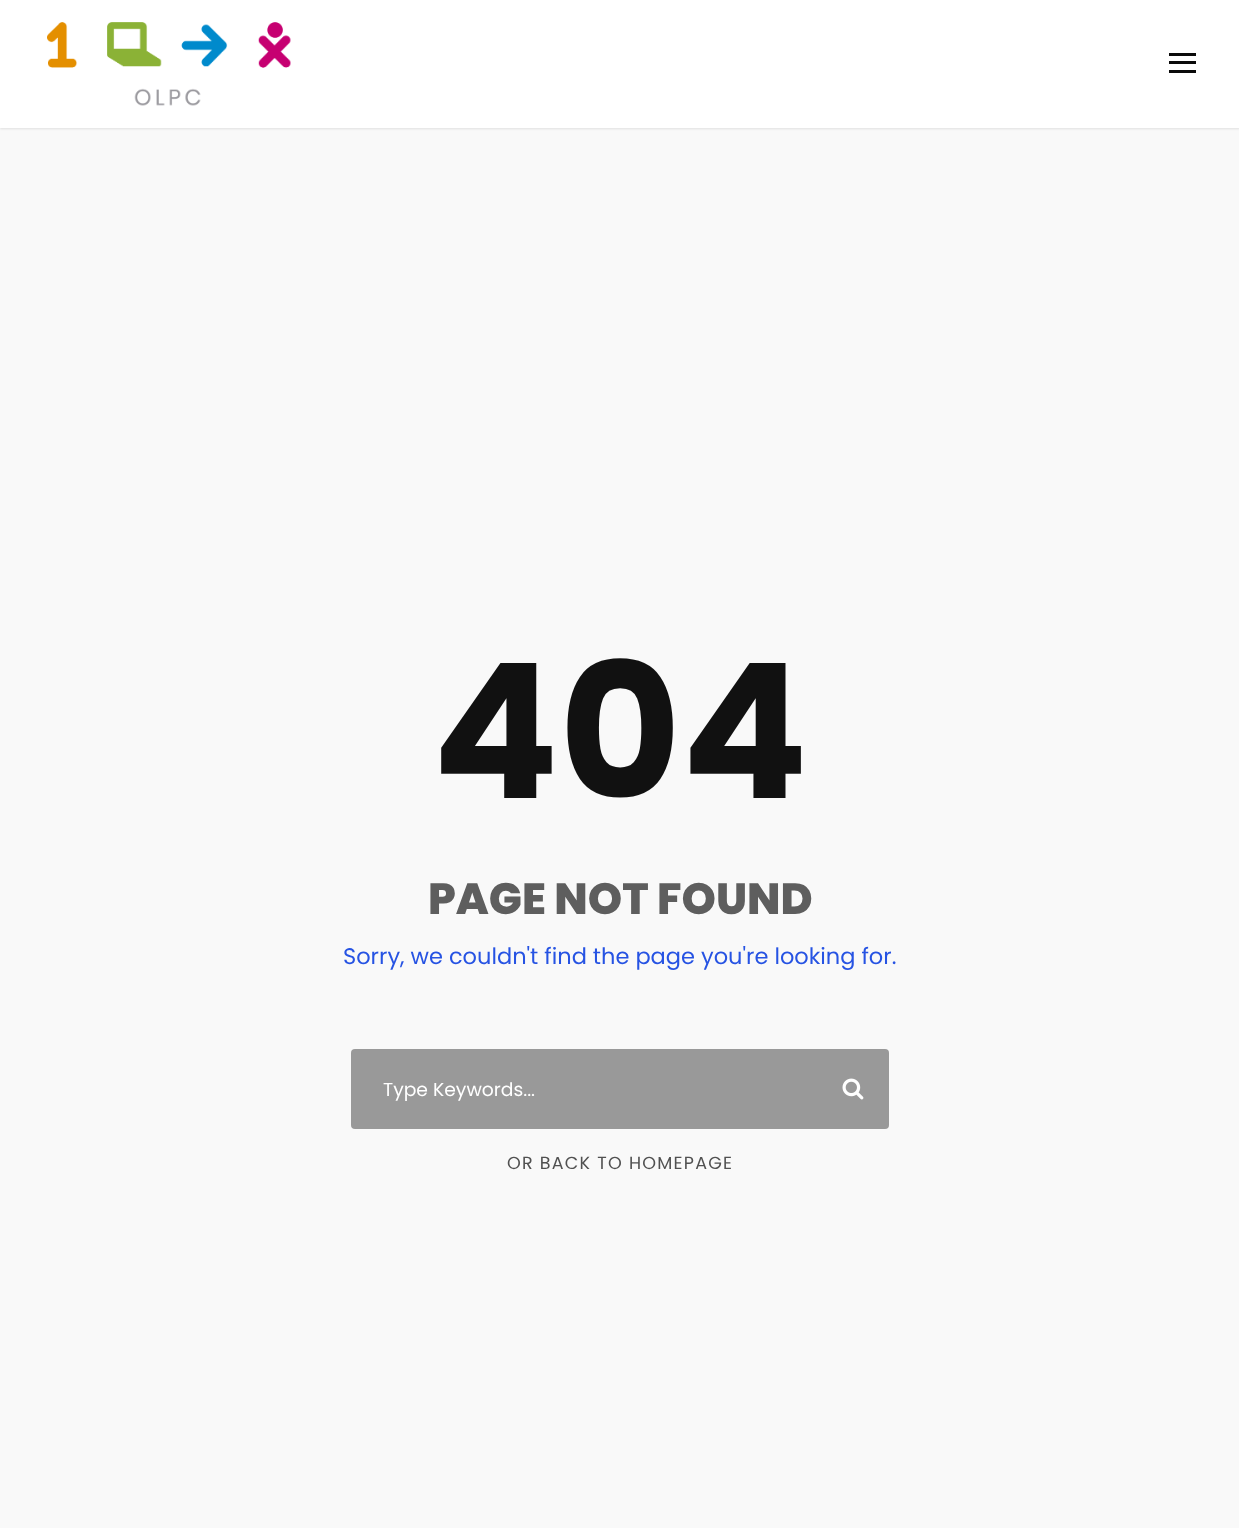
<!DOCTYPE html>
<meta charset="utf-8">
<style>body { margin: 0 } canvas { display: block }</style>
<canvas id="canvas" width="1239" height="1528"></canvas>
<script type="module">
  const canvas = document.getElementById("canvas");
  const g = canvas.getContext("2d");
  g.miterLimit = 4;
  g.fontKerning = "normal";
  function drawText(s, x, y, [font, color]) {
    g.font = font;
    g.fillStyle = color;
    g.fillText(s, x, y);
  }
  function fillBox(x, y, w, h, color) {
    g.fillStyle = color;
    g.fillRect(x, y, w, h);
  }
  function fillRounded(x, y, w, h, r, color) {
    g.fillStyle = color;
    g.beginPath();
    g.roundRect(x, y, w, h, r);
    g.fill();
  }
  async function drawPicture(src, x, y, w, h) {
    const img = new Image();
    img.src = src;
    await img.decode();
    g.drawImage(img, x, y, w, h);
  }

  const s1 = ["bold 187.5px Poppins", "#111111"];
  const s2 = ["800 43.75px Poppins", "#5E5E5E"];
  const s3 = ["22.5px Poppins", "#2653E3"];
  const s4 = ["18.75px Poppins", "#FFFFFF"];
  const s5 = ["17.5px Poppins", "#515151"];

  fillBox(0, 0, 1239, 1528, "#F9F9F9");
  g.fillStyle = "rgba(0, 0, 0, 0.1)";
  g.filter = "blur(1px)";
  g.beginPath();
  g.rect(0, 1, 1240, 128);
  g.fill();
  g.filter = "none";
  fillBox(0, 0, 1239, 128, "#FFFFFF");
  await drawPicture("pic1.png", 47, 22, 244, 84);
  fillBox(1169, 53, 27, 3, "#0A0A0A");
  fillBox(1169, 61, 27, 3, "#0A0A0A");
  fillBox(1169, 70, 27, 3, "#0A0A0A");
  drawText("404", 432, 798, s1);
  drawText("PAGE NOT FOUND", 428, 914, s2);
  drawText("Sorry, we couldn't find the page you're looking for.", 343, 964, s3);
  fillRounded(351, 1049, 538, 80, 4, "#999999");
  drawText("Type Keywords...", 383, 1096, s4);
  await drawPicture("pic2.png", 842, 1078, 22, 22);
  g.letterSpacing = "1.25px";
  drawText("OR BACK TO HOMEPAGE", 507, 1169, s5);
</script>
